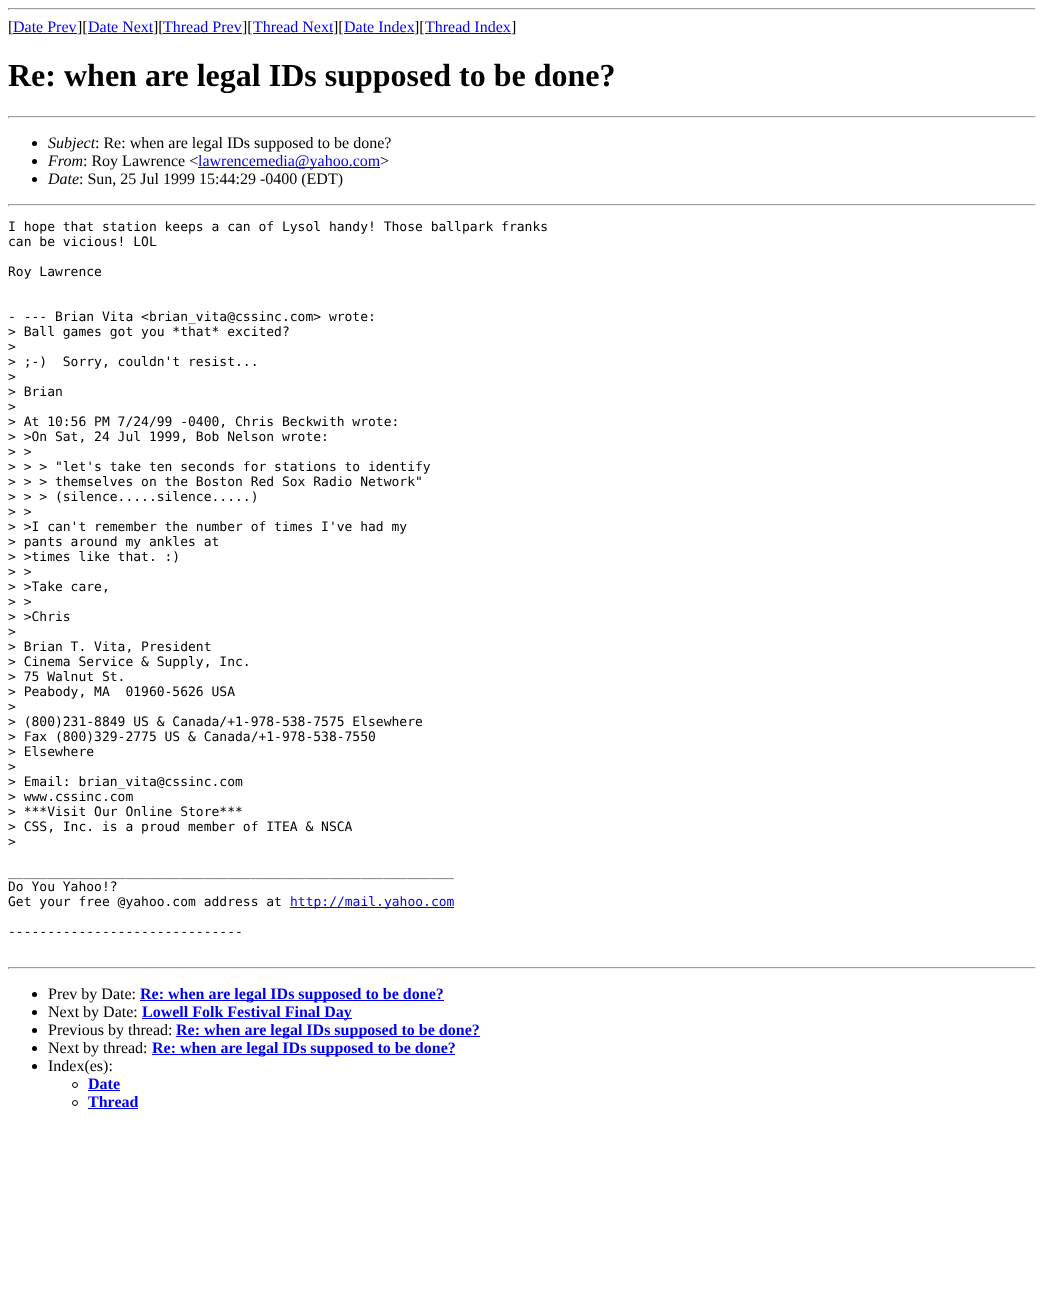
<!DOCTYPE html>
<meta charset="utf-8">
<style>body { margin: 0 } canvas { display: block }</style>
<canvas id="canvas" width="1044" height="1311"></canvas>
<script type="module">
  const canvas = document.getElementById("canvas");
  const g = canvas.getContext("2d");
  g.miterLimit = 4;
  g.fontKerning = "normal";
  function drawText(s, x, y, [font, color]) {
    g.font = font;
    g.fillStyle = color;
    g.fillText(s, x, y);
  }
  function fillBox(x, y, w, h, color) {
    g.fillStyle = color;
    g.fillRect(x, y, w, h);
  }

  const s1 = ["16px Liberation Serif", "#000000"];
  const s2 = ["16px Liberation Serif", "#0000EE"];
  const s3 = ["bold 32px Liberation Serif", "#000000"];
  const s4 = ["italic 16px Liberation Serif", "#000000"];
  const s5 = ["13px DejaVu Sans Mono", "#000000"];
  const s6 = ["13px DejaVu Sans Mono", "#0000EE"];
  const s7 = ["bold 16px Liberation Serif", "#0000EE"];

  fillBox(0, 0, 1044, 1311, "#FFFFFF");
  fillBox(8, 8, 1028, 1, "#9F9F9F");
  fillBox(1035, 8, 1, 2, "#EEEEEE");
  fillBox(8, 9, 1028, 1, "#EEEEEE");
  fillBox(8, 8, 1, 2, "#9F9F9F");
  drawText("[", 8, 32, s1);
  drawText("Date Prev", 13, 32, s2);
  fillBox(13, 33, 64, 1, "#0000EE");
  drawText("][", 77, 32, s1);
  drawText("Date Next", 88, 32, s2);
  fillBox(88, 33, 65, 1, "#0000EE");
  drawText("][", 153, 32, s1);
  drawText("Thread Prev", 163, 32, s2);
  fillBox(163, 33, 79, 1, "#0000EE");
  drawText("][", 242, 32, s1);
  drawText("Thread Next", 253, 32, s2);
  fillBox(253, 33, 80, 1, "#0000EE");
  drawText("][", 333, 32, s1);
  drawText("Date Index", 344, 32, s2);
  fillBox(344, 33, 70, 1, "#0000EE");
  drawText("][", 414, 32, s1);
  drawText("Thread Index", 425, 32, s2);
  fillBox(425, 33, 86, 1, "#0000EE");
  drawText("]", 511, 32, s1);
  drawText("Re: when are legal IDs supposed to be done?", 8, 86, s3);
  fillBox(8, 116, 1028, 1, "#9F9F9F");
  fillBox(1035, 116, 1, 2, "#EEEEEE");
  fillBox(8, 117, 1028, 1, "#EEEEEE");
  fillBox(8, 116, 1, 2, "#9F9F9F");
  g.fillStyle = "#000000";
  g.beginPath();
  g.arc(34.5, 143.5, 2.5, 0, Math.PI * 2);
  g.fill();
  drawText("Subject", 48, 148, s4);
  drawText(": Re: when are legal IDs supposed to be done?", 95, 148, s1);
  g.beginPath();
  g.arc(34.5, 161.5, 2.5, 0, Math.PI * 2);
  g.fill();
  drawText("From", 48, 166, s4);
  drawText(": Roy Lawrence <", 83, 166, s1);
  fillBox(198, 167, 182, 1, "#0000EE");
  drawText("lawrencemedia@yahoo.com", 198, 166, s2);
  drawText(">", 380, 166, s1);
  g.beginPath();
  g.arc(34.5, 179.5, 2.5, 0, Math.PI * 2);
  g.fill();
  drawText("Date", 48, 184, s4);
  drawText(": Sun, 25 Jul 1999 15:44:29 -0400 (EDT)", 79, 184, s1);
  fillBox(8, 204, 1028, 1, "#9F9F9F");
  fillBox(1035, 204, 1, 2, "#EEEEEE");
  fillBox(8, 205, 1028, 1, "#EEEEEE");
  fillBox(8, 204, 1, 2, "#9F9F9F");
  drawText("I hope that station keeps a can of Lysol handy! Those ballpark franks", 8, 231, s5);
  drawText("can be vicious! LOL", 8, 246, s5);
  drawText("Roy Lawrence", 8, 276, s5);
  drawText("- --- Brian Vita <brian_vita@cssinc.com> wrote:", 8, 321, s5);
  drawText("> Ball games got you *that* excited?", 8, 336, s5);
  drawText(">", 8, 351, s5);
  drawText("> ;-)  Sorry, couldn't resist...", 8, 366, s5);
  drawText(">", 8, 381, s5);
  drawText("> Brian", 8, 396, s5);
  drawText(">", 8, 411, s5);
  drawText("> At 10:56 PM 7/24/99 -0400, Chris Beckwith wrote:", 8, 426, s5);
  drawText("> >On Sat, 24 Jul 1999, Bob Nelson wrote:", 8, 441, s5);
  drawText("> >", 8, 456, s5);
  drawText("> > > \"let's take ten seconds for stations to identify", 8, 471, s5);
  drawText("> > > themselves on the Boston Red Sox Radio Network\"", 8, 486, s5);
  drawText("> > > (silence.....silence.....)", 8, 501, s5);
  drawText("> >", 8, 516, s5);
  drawText("> >I can't remember the number of times I've had my", 8, 531, s5);
  drawText("> pants around my ankles at", 8, 546, s5);
  drawText("> >times like that. :)", 8, 561, s5);
  drawText("> >", 8, 576, s5);
  drawText("> >Take care,", 8, 591, s5);
  drawText("> >", 8, 606, s5);
  drawText("> >Chris", 8, 621, s5);
  drawText(">", 8, 636, s5);
  drawText("> Brian T. Vita, President", 8, 651, s5);
  drawText("> Cinema Service & Supply, Inc.", 8, 666, s5);
  drawText("> 75 Walnut St.", 8, 681, s5);
  drawText("> Peabody, MA  01960-5626 USA", 8, 696, s5);
  drawText(">", 8, 711, s5);
  drawText("> (800)231-8849 US & Canada/+1-978-538-7575 Elsewhere", 8, 726, s5);
  drawText("> Fax (800)329-2775 US & Canada/+1-978-538-7550", 8, 741, s5);
  drawText("> Elsewhere", 8, 756, s5);
  drawText(">", 8, 771, s5);
  drawText("> Email: brian_vita@cssinc.com", 8, 786, s5);
  drawText("> www.cssinc.com", 8, 801, s5);
  drawText("> ***Visit Our Online Store***", 8, 816, s5);
  drawText("> CSS, Inc. is a proud member of ITEA & NSCA", 8, 831, s5);
  drawText(">", 8, 846, s5);
  drawText("_________________________________________________________", 8, 876, s5);
  drawText("Do You Yahoo!?", 8, 891, s5);
  drawText("Get your free @yahoo.com address at", 8, 906, s5);
  fillBox(290, 907, 164, 1, "#0000EE");
  drawText("http://mail.yahoo.com", 290, 906, s6);
  drawText("------------------------------", 8, 936, s5);
  fillBox(8, 967, 1028, 1, "#9F9F9F");
  fillBox(1035, 967, 1, 2, "#EEEEEE");
  fillBox(8, 968, 1028, 1, "#EEEEEE");
  fillBox(8, 967, 1, 2, "#9F9F9F");
  g.fillStyle = "#000000";
  g.beginPath();
  g.arc(34.5, 994.5, 2.5, 0, Math.PI * 2);
  g.fill();
  drawText("Prev by Date:", 48, 999, s1);
  fillBox(140, 1000, 304, 1, "#0000EE");
  drawText("Re: when are legal IDs supposed to be done?", 140, 999, s7);
  g.fillStyle = "#000000";
  g.beginPath();
  g.arc(34.5, 1012.5, 2.5, 0, Math.PI * 2);
  g.fill();
  drawText("Next by Date:", 48, 1017, s1);
  fillBox(142, 1018, 210, 1, "#0000EE");
  drawText("Lowell Folk Festival Final Day", 142, 1017, s7);
  g.fillStyle = "#000000";
  g.beginPath();
  g.arc(34.5, 1030.5, 2.5, 0, Math.PI * 2);
  g.fill();
  drawText("Previous by thread:", 48, 1035, s1);
  fillBox(176, 1036, 304, 1, "#0000EE");
  drawText("Re: when are legal IDs supposed to be done?", 176, 1035, s7);
  g.fillStyle = "#000000";
  g.beginPath();
  g.arc(34.5, 1048.5, 2.5, 0, Math.PI * 2);
  g.fill();
  drawText("Next by thread:", 48, 1053, s1);
  fillBox(152, 1054, 303, 1, "#0000EE");
  drawText("Re: when are legal IDs supposed to be done?", 152, 1053, s7);
  g.fillStyle = "#000000";
  g.beginPath();
  g.arc(34.5, 1066.5, 2.5, 0, Math.PI * 2);
  g.fill();
  drawText("Index(es):", 48, 1071, s1);
  g.beginPath();
  g.arc(75, 1085, 2.5, 0, Math.PI * 2);
  g.strokeStyle = "#000000";
  g.stroke();
  drawText("Date", 88, 1089, s7);
  fillBox(88, 1090, 32, 1, "#0000EE");
  g.beginPath();
  g.arc(75, 1103, 2.5, 0, Math.PI * 2);
  g.stroke();
  drawText("Thread", 88, 1107, s7);
  fillBox(88, 1108, 50, 1, "#0000EE");
</script>
